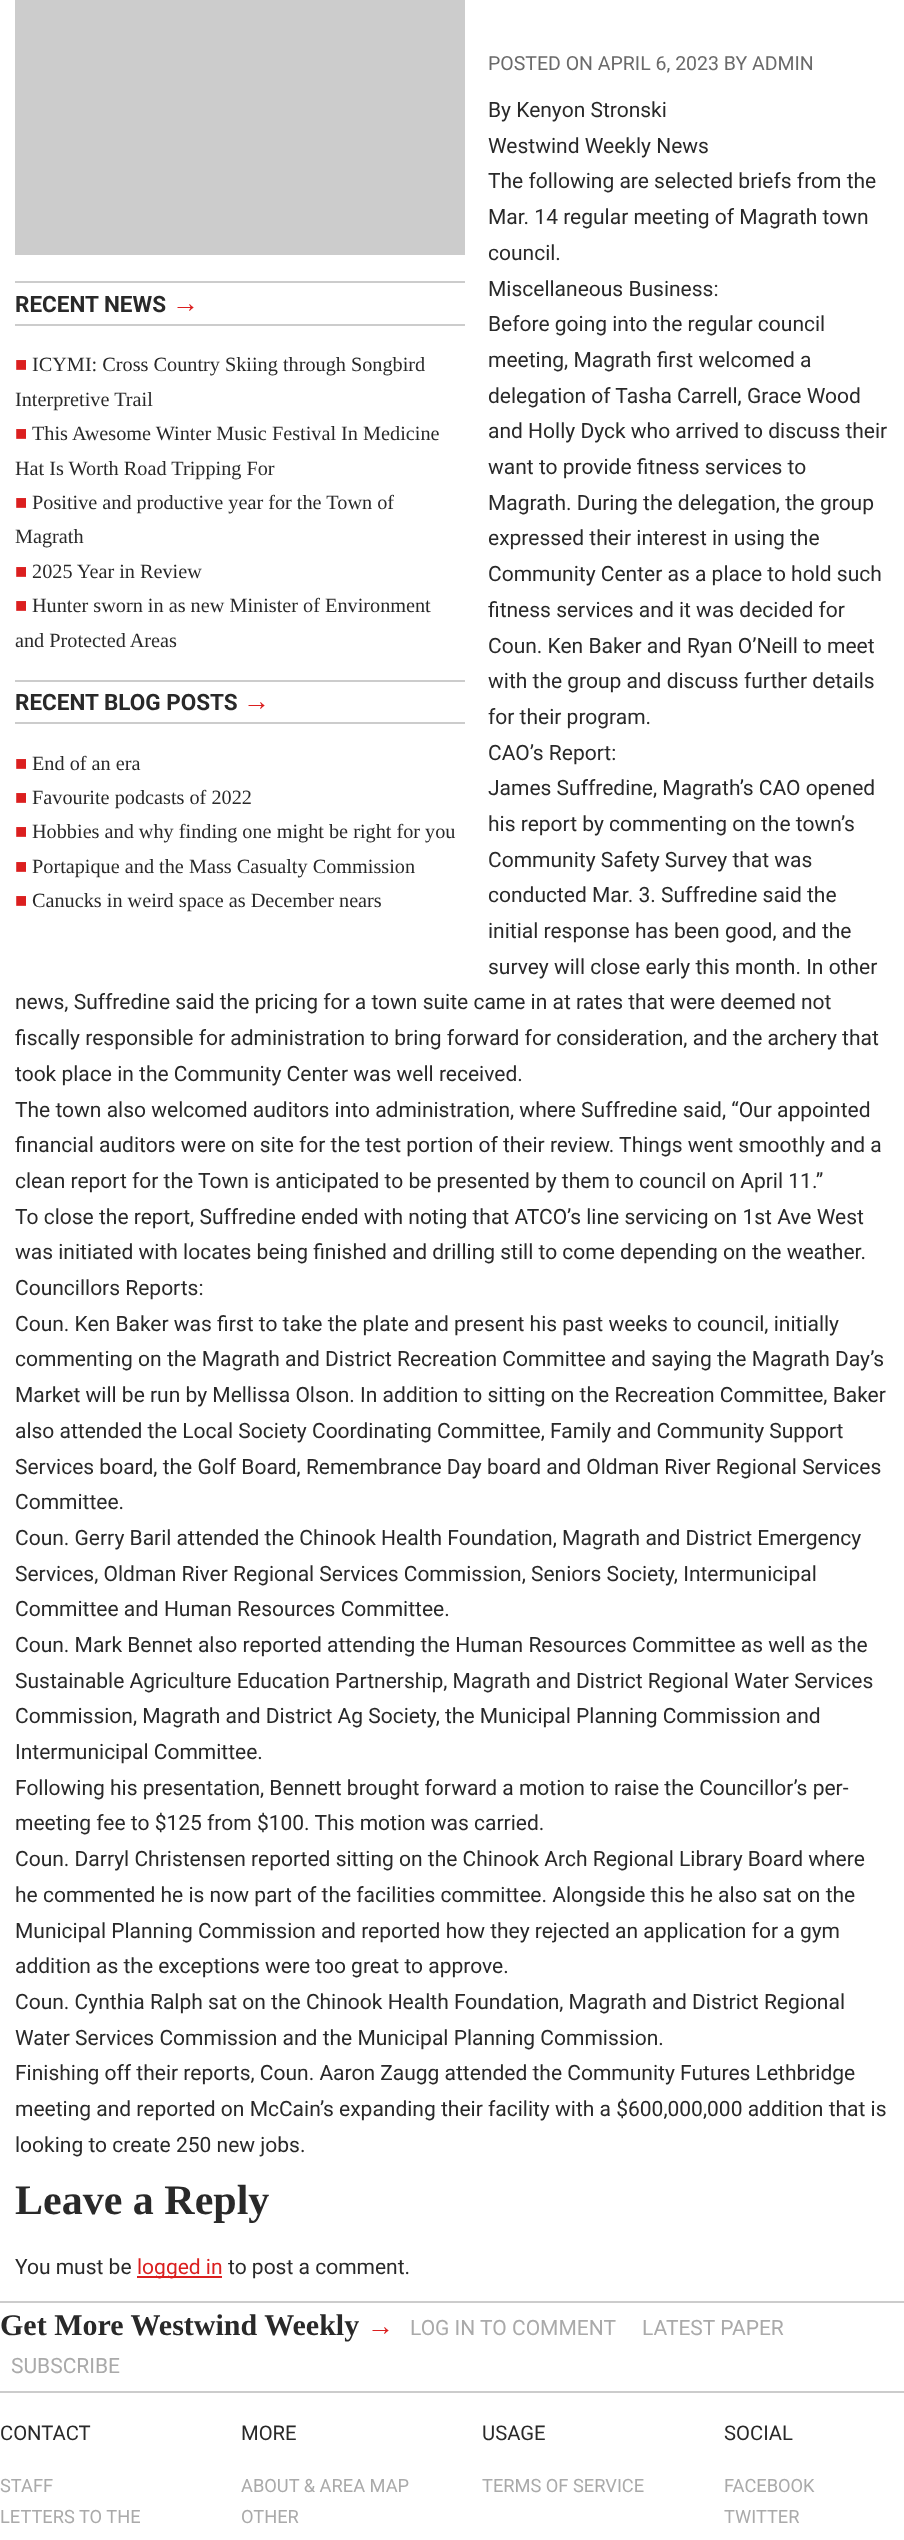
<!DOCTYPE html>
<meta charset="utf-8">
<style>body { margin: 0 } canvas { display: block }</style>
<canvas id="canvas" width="904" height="2540"></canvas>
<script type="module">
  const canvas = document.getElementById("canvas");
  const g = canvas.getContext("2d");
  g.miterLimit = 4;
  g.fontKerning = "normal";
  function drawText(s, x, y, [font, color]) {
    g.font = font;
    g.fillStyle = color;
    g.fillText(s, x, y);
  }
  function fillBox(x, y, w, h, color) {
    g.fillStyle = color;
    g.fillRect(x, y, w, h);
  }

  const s1 = ["19.5px Roboto", "#6A6A6A"];
  const s2 = ["21px Roboto", "#292929"];
  const s3 = ["bold 42px Liberation Serif", "#292929"];
  const s4 = ["21px Roboto", "#DB1F1F"];
  const s5 = ["bold 22.5px Roboto", "#292929"];
  const s6 = ["bold 27px Liberation Sans", "#DB1F1F"];
  const s7 = ["20.25px Liberation Serif", "#DB1F1F"];
  const s8 = ["20.25px Liberation Serif", "#292929"];
  const s9 = ["bold 30px Liberation Serif", "#292929"];
  const s10 = ["bold 27px Liberation Serif", "#DB1F1F"];
  const s11 = ["21px Roboto", "#AAAAAA"];
  const s12 = ["20.25px Roboto", "#292929"];
  const s13 = ["18.25px Roboto", "#AAAAAA"];

  fillBox(0, 0, 904, 2540, "#FFFFFF");
  drawText("POSTED ON APRIL 6, 2023 BY ADMIN", 488, 70, s1);
  drawText("By Kenyon Stronski", 488, 117, s2);
  drawText("Westwind Weekly News", 488, 153, s2);
  drawText("The following are selected briefs from the", 488, 188, s2);
  drawText("Mar. 14 regular meeting of Magrath town", 488, 224, s2);
  drawText("council.", 488, 260, s2);
  drawText("Miscellaneous Business:", 488, 296, s2);
  drawText("Before going into the regular council", 488, 331, s2);
  drawText("meeting, Magrath first welcomed a", 488, 367, s2);
  drawText("delegation of Tasha Carrell, Grace Wood", 488, 403, s2);
  drawText("and Holly Dyck who arrived to discuss their", 488, 438, s2);
  drawText("want to provide fitness services to", 488, 474, s2);
  drawText("Magrath. During the delegation, the group", 488, 510, s2);
  drawText("expressed their interest in using the", 488, 545, s2);
  drawText("Community Center as a place to hold such", 488, 581, s2);
  drawText("fitness services and it was decided for", 488, 617, s2);
  drawText("Coun. Ken Baker and Ryan O’Neill to meet", 488, 653, s2);
  drawText("with the group and discuss further details", 488, 688, s2);
  drawText("for their program.", 488, 724, s2);
  drawText("CAO’s Report:", 488, 760, s2);
  drawText("James Suffredine, Magrath’s CAO opened", 488, 795, s2);
  drawText("his report by commenting on the town’s", 488, 831, s2);
  drawText("Community Safety Survey that was", 488, 867, s2);
  drawText("conducted Mar. 3. Suffredine said the", 488, 902, s2);
  drawText("initial response has been good, and the", 488, 938, s2);
  drawText("survey will close early this month. In other", 488, 974, s2);
  drawText("news, Suffredine said the pricing for a town suite came in at rates that were deemed not", 15, 1009, s2);
  drawText("fiscally responsible for administration to bring forward for consideration, and the archery that", 15, 1045, s2);
  drawText("took place in the Community Center was well received.", 15, 1081, s2);
  drawText("The town also welcomed auditors into administration, where Suffredine said, “Our appointed", 15, 1117, s2);
  drawText("financial auditors were on site for the test portion of their review. Things went smoothly and a", 15, 1152, s2);
  drawText("clean report for the Town is anticipated to be presented by them to council on April 11.”", 15, 1188, s2);
  drawText("To close the report, Suffredine ended with noting that ATCO’s line servicing on 1st Ave West", 15, 1224, s2);
  drawText("was initiated with locates being finished and drilling still to come depending on the weather.", 15, 1259, s2);
  drawText("Councillors Reports:", 15, 1295, s2);
  drawText("Coun. Ken Baker was first to take the plate and present his past weeks to council, initially", 15, 1331, s2);
  drawText("commenting on the Magrath and District Recreation Committee and saying the Magrath Day’s", 15, 1366, s2);
  drawText("Market will be run by Mellissa Olson. In addition to sitting on the Recreation Committee, Baker", 15, 1402, s2);
  drawText("also attended the Local Society Coordinating Committee, Family and Community Support", 15, 1438, s2);
  drawText("Services board, the Golf Board, Remembrance Day board and Oldman River Regional Services", 15, 1474, s2);
  drawText("Committee.", 15, 1509, s2);
  drawText("Coun. Gerry Baril attended the Chinook Health Foundation, Magrath and District Emergency", 15, 1545, s2);
  drawText("Services, Oldman River Regional Services Commission, Seniors Society, Intermunicipal", 15, 1581, s2);
  drawText("Committee and Human Resources Committee.", 15, 1616, s2);
  drawText("Coun. Mark Bennet also reported attending the Human Resources Committee as well as the", 15, 1652, s2);
  drawText("Sustainable Agriculture Education Partnership, Magrath and District Regional Water Services", 15, 1688, s2);
  drawText("Commission, Magrath and District Ag Society, the Municipal Planning Commission and", 15, 1723, s2);
  drawText("Intermunicipal Committee.", 15, 1759, s2);
  drawText("Following his presentation, Bennett brought forward a motion to raise the Councillor’s per-", 15, 1795, s2);
  drawText("meeting fee to $125 from $100. This motion was carried.", 15, 1830, s2);
  drawText("Coun. Darryl Christensen reported sitting on the Chinook Arch Regional Library Board where", 15, 1866, s2);
  drawText("he commented he is now part of the facilities committee. Alongside this he also sat on the", 15, 1902, s2);
  drawText("Municipal Planning Commission and reported how they rejected an application for a gym", 15, 1938, s2);
  drawText("addition as the exceptions were too great to approve.", 15, 1973, s2);
  drawText("Coun. Cynthia Ralph sat on the Chinook Health Foundation, Magrath and District Regional", 15, 2009, s2);
  drawText("Water Services Commission and the Municipal Planning Commission.", 15, 2045, s2);
  drawText("Finishing off their reports, Coun. Aaron Zaugg attended the Community Futures Lethbridge", 15, 2080, s2);
  drawText("meeting and reported on McCain’s expanding their facility with a $600,000,000 addition that is", 15, 2116, s2);
  drawText("looking to create 250 new jobs.", 15, 2152, s2);
  drawText("Leave a Reply", 15, 2214, s3);
  drawText("You must be", 15, 2274, s2);
  fillBox(137, 2276, 85, 2, "#DB1F1F");
  drawText("logged in", 137, 2274, s4);
  drawText("to post a comment.", 228, 2274, s2);
  fillBox(15, 0, 450, 255, "#CCCCCC");
  fillBox(15, 281, 450, 2, "#CCCCCC");
  fillBox(15, 324, 450, 2, "#CCCCCC");
  drawText("RECENT NEWS", 15, 312, s5);
  drawText("→", 172, 312, s6);
  drawText("■", 15, 371, s7);
  drawText("ICYMI: Cross Country Skiing through Songbird", 32, 371, s8);
  drawText("Interpretive Trail", 15, 406, s8);
  drawText("■", 15, 440, s7);
  drawText("This Awesome Winter Music Festival In Medicine", 32, 440, s8);
  drawText("Hat Is Worth Road Tripping For", 15, 475, s8);
  drawText("■", 15, 509, s7);
  drawText("Positive and productive year for the Town of", 32, 509, s8);
  drawText("Magrath", 15, 543, s8);
  drawText("■", 15, 578, s7);
  drawText("2025 Year in Review", 32, 578, s8);
  drawText("■", 15, 612, s7);
  drawText("Hunter sworn in as new Minister of Environment", 32, 612, s8);
  drawText("and Protected Areas", 15, 647, s8);
  fillBox(15, 680, 450, 2, "#CCCCCC");
  fillBox(15, 722, 450, 2, "#CCCCCC");
  drawText("RECENT BLOG POSTS", 15, 710, s5);
  drawText("→", 243, 710, s6);
  drawText("■", 15, 770, s7);
  drawText("End of an era", 32, 770, s8);
  drawText("■", 15, 804, s7);
  drawText("Favourite podcasts of 2022", 32, 804, s8);
  drawText("■", 15, 838, s7);
  drawText("Hobbies and why finding one might be right for you", 32, 838, s8);
  drawText("■", 15, 873, s7);
  drawText("Portapique and the Mass Casualty Commission", 32, 873, s8);
  drawText("■", 15, 907, s7);
  drawText("Canucks in weird space as December nears", 32, 907, s8);
  fillBox(0, 2301, 904, 2, "#CCCCCC");
  fillBox(0, 2391, 904, 2, "#CCCCCC");
  drawText("Get More Westwind Weekly", 0, 2335, s9);
  drawText("→", 367, 2335, s10);
  drawText("LOG IN TO COMMENT", 410, 2335, s11);
  drawText("LATEST PAPER", 642, 2335, s11);
  drawText("SUBSCRIBE", 11, 2373, s11);
  drawText("CONTACT", 0, 2440, s12);
  drawText("STAFF", 0, 2492, s13);
  drawText("LETTERS TO THE", 0, 2523, s13);
  drawText("MORE", 241, 2440, s12);
  drawText("ABOUT & AREA MAP", 241, 2492, s13);
  drawText("OTHER", 241, 2523, s13);
  drawText("USAGE", 482, 2440, s12);
  drawText("TERMS OF SERVICE", 482, 2492, s13);
  drawText("SOCIAL", 724, 2440, s12);
  drawText("FACEBOOK", 724, 2492, s13);
  drawText("TWITTER", 724, 2523, s13);
</script>
